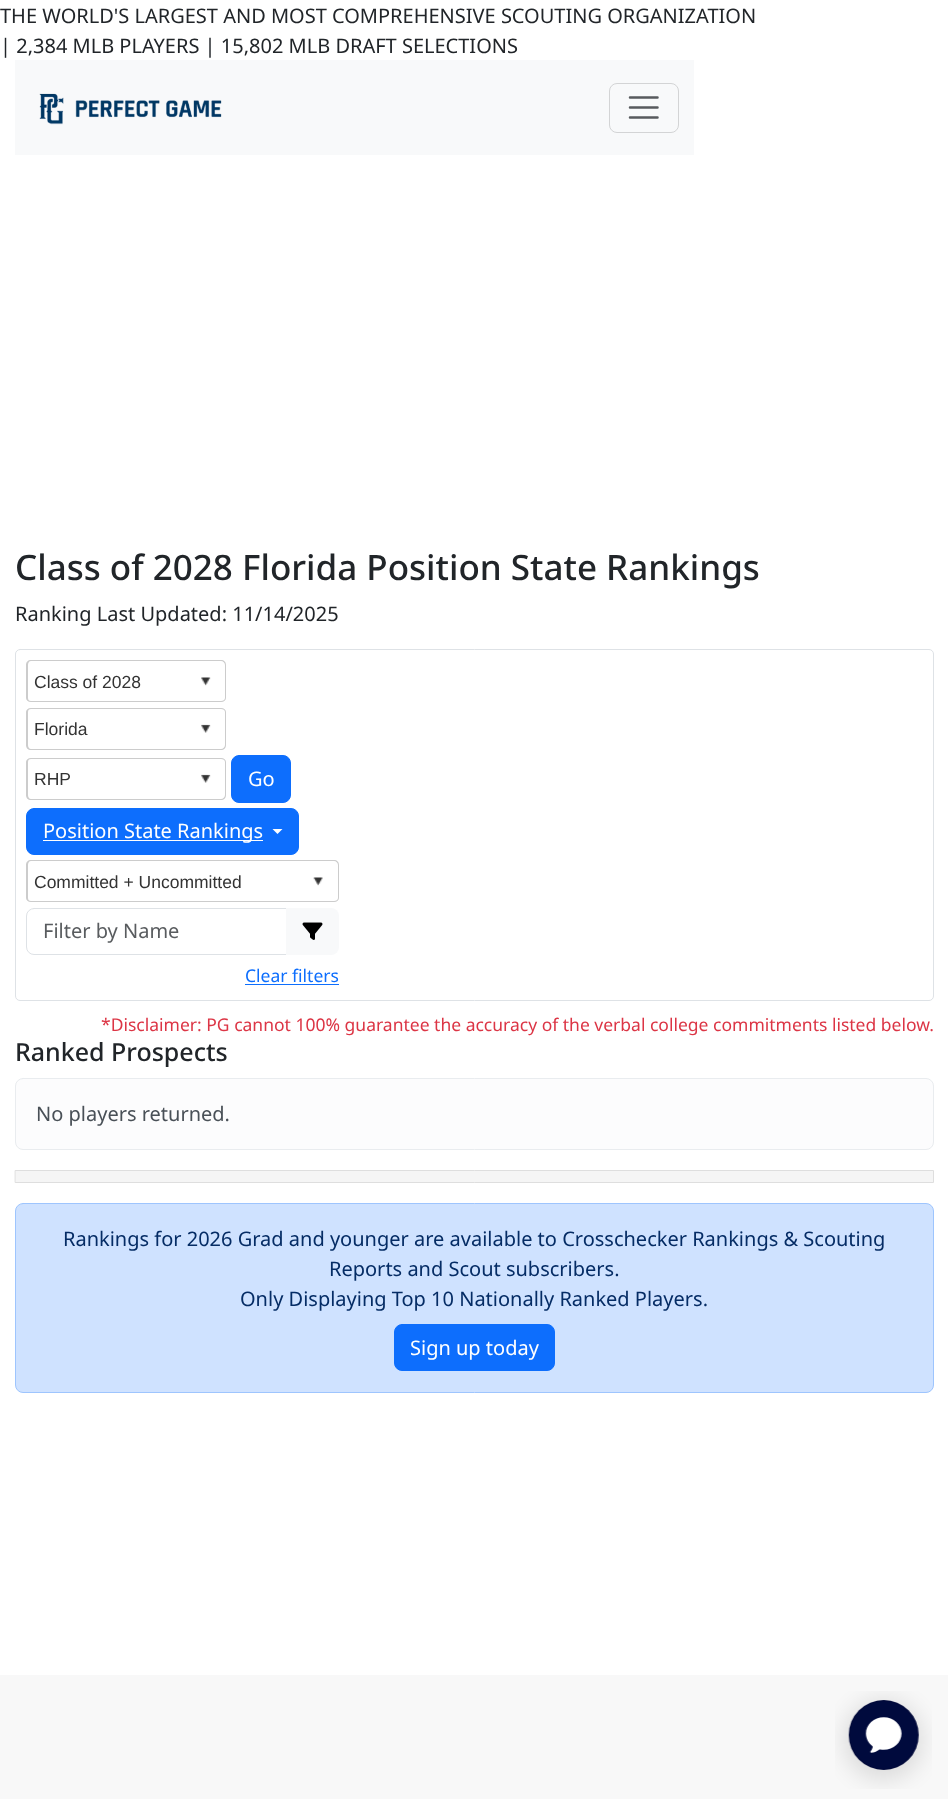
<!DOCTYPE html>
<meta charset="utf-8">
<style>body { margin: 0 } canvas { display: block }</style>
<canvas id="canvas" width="948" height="1799"></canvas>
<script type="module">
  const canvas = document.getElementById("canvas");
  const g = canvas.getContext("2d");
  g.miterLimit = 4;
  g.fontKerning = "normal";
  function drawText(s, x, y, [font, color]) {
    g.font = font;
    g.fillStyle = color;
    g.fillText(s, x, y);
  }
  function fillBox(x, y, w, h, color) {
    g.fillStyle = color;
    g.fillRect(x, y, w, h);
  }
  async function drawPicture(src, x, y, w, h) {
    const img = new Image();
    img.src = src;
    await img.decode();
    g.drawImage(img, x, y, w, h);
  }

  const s1 = ["20px Noto Sans", "#212529"];
  const s2 = ["500 35px Noto Sans", "#212529"];
  const s3 = ["17.5px Liberation Sans", "#333333"];
  const s4 = ["20px Noto Sans", "#FFFFFF"];
  const s5 = ["20px Noto Sans", "#595C5F"];
  const s6 = ["17.5px Noto Sans", "#0D6EFD"];
  const s7 = ["17.5px Noto Sans", "#DC3545"];
  const s8 = ["500 25px Noto Sans", "#212529"];
  const s9 = ["20px Noto Sans", "#495057"];
  const s10 = ["20px Noto Sans", "#052C65"];

  fillBox(0, 0, 948, 1799, "#FFFFFF");
  drawText("THE WORLD'S LARGEST AND MOST COMPREHENSIVE SCOUTING ORGANIZATION", 0, 23, s1);
  drawText("| 2,384 MLB PLAYERS | 15,802 MLB DRAFT SELECTIONS", 0, 53, s1);
  fillBox(15, 60, 679, 95, "#F8F9FA");
  await drawPicture("pic1.png", 39, 93, 183, 32);
  g.beginPath();
  g.roundRect(609.5, 83.5, 69, 49, 7.5);
  g.strokeStyle = "#D3D4D5";
  g.stroke();
  g.beginPath();
  g.moveTo(630, 97.5);
  g.lineTo(657.5, 97.5);
  g.moveTo(630, 107.5);
  g.lineTo(657.5, 107.5);
  g.moveTo(630, 117.5);
  g.lineTo(657.5, 117.5);
  g.strokeStyle = "#575A5D";
  g.lineWidth = 2.5;
  g.lineCap = "round";
  g.stroke();
  drawText("Class of 2028 Florida Position State Rankings", 15, 580, s2);
  drawText("Ranking Last Updated: 11/14/2025", 15, 621, s1);
  g.beginPath();
  g.roundRect(15.5, 649.5, 918, 351, 4.5);
  g.strokeStyle = "#DEE2E6";
  g.lineWidth = 1;
  g.stroke();
  g.fillStyle = "#CCCCCC";
  g.beginPath();
  g.moveTo(31, 660);
  g.lineTo(185, 660);
  g.lineTo(185, 702);
  g.lineTo(31, 702);
  g.bezierCurveTo(28, 702, 26, 700, 26, 698);
  g.lineTo(26, 665);
  g.bezierCurveTo(26, 662, 28, 660, 31, 660);
  g.closePath();
  g.moveTo(31, 661);
  g.lineTo(185, 661);
  g.lineTo(185, 701);
  g.lineTo(31, 701);
  g.bezierCurveTo(29, 701, 28, 700, 28, 698);
  g.lineTo(28, 665);
  g.bezierCurveTo(28, 663, 29, 661, 31, 661);
  g.closePath();
  g.fill("evenodd");
  drawText("Class of 2028", 34, 688, s3);
  g.fillStyle = "#CCCCCC";
  g.beginPath();
  g.moveTo(185, 660);
  g.lineTo(221, 660);
  g.bezierCurveTo(224, 660, 226, 662, 226, 665);
  g.lineTo(226, 698);
  g.bezierCurveTo(226, 700, 224, 702, 221, 702);
  g.lineTo(185, 702);
  g.closePath();
  g.moveTo(185, 661);
  g.lineTo(221, 661);
  g.bezierCurveTo(223, 661, 225, 663, 225, 665);
  g.lineTo(225, 698);
  g.bezierCurveTo(225, 700, 223, 701, 221, 701);
  g.lineTo(185, 701);
  g.closePath();
  g.fill("evenodd");
  await drawPicture("pic2.png", 201, 677, 10, 9);
  g.beginPath();
  g.moveTo(31, 708);
  g.lineTo(185, 708);
  g.lineTo(185, 750);
  g.lineTo(31, 750);
  g.bezierCurveTo(28, 750, 26, 748, 26, 745);
  g.lineTo(26, 712);
  g.bezierCurveTo(26, 710, 28, 708, 31, 708);
  g.closePath();
  g.moveTo(31, 709);
  g.lineTo(185, 709);
  g.lineTo(185, 749);
  g.lineTo(31, 749);
  g.bezierCurveTo(29, 749, 28, 747, 28, 745);
  g.lineTo(28, 712);
  g.bezierCurveTo(28, 710, 29, 709, 31, 709);
  g.closePath();
  g.fill("evenodd");
  drawText("Florida", 34, 735, s3);
  g.fillStyle = "#CCCCCC";
  g.beginPath();
  g.moveTo(185, 708);
  g.lineTo(221, 708);
  g.bezierCurveTo(224, 708, 226, 710, 226, 712);
  g.lineTo(226, 745);
  g.bezierCurveTo(226, 748, 224, 750, 221, 750);
  g.lineTo(185, 750);
  g.closePath();
  g.moveTo(185, 709);
  g.lineTo(221, 709);
  g.bezierCurveTo(223, 709, 225, 710, 225, 712);
  g.lineTo(225, 745);
  g.bezierCurveTo(225, 747, 223, 749, 221, 749);
  g.lineTo(185, 749);
  g.closePath();
  g.fill("evenodd");
  await drawPicture("pic3.png", 201, 724, 10, 9);
  g.beginPath();
  g.moveTo(31, 758);
  g.lineTo(185, 758);
  g.lineTo(185, 800);
  g.lineTo(31, 800);
  g.bezierCurveTo(28, 800, 26, 798, 26, 795);
  g.lineTo(26, 762);
  g.bezierCurveTo(26, 760, 28, 758, 31, 758);
  g.closePath();
  g.moveTo(31, 759);
  g.lineTo(185, 759);
  g.lineTo(185, 799);
  g.lineTo(31, 799);
  g.bezierCurveTo(29, 799, 28, 797, 28, 795);
  g.lineTo(28, 762);
  g.bezierCurveTo(28, 760, 29, 759, 31, 759);
  g.closePath();
  g.fill("evenodd");
  drawText("RHP", 34, 785, s3);
  g.fillStyle = "#CCCCCC";
  g.beginPath();
  g.moveTo(185, 758);
  g.lineTo(221, 758);
  g.bezierCurveTo(224, 758, 226, 760, 226, 762);
  g.lineTo(226, 795);
  g.bezierCurveTo(226, 798, 224, 800, 221, 800);
  g.lineTo(185, 800);
  g.closePath();
  g.moveTo(185, 759);
  g.lineTo(221, 759);
  g.bezierCurveTo(223, 759, 225, 760, 225, 762);
  g.lineTo(225, 795);
  g.bezierCurveTo(225, 797, 223, 799, 221, 799);
  g.lineTo(185, 799);
  g.closePath();
  g.fill("evenodd");
  await drawPicture("pic3.png", 201, 774, 10, 9);
  g.fillStyle = "#0D6EFD";
  g.beginPath();
  g.roundRect(231.5, 755.5, 59, 47, 7.5);
  g.fill();
  g.strokeStyle = "#0D6EFD";
  g.stroke();
  drawText("Go", 248, 786, s4);
  g.fillStyle = "#0D6EFD";
  g.beginPath();
  g.roundRect(26.5, 808.5, 272, 46, 7.5);
  g.fill();
  g.stroke();
  fillBox(43, 840, 220, 1, "#FFFFFF");
  drawText("Position State Rankings", 43, 838, s4);
  g.beginPath();
  g.moveTo(272.5, 829);
  g.lineTo(282.5, 829);
  g.lineTo(277.5, 834);
  g.closePath();
  g.fill();
  g.fillStyle = "#CCCCCC";
  g.beginPath();
  g.moveTo(31, 860);
  g.lineTo(298, 860);
  g.lineTo(298, 902);
  g.lineTo(31, 902);
  g.bezierCurveTo(28, 902, 26, 900, 26, 898);
  g.lineTo(26, 865);
  g.bezierCurveTo(26, 862, 28, 860, 31, 860);
  g.closePath();
  g.moveTo(31, 861);
  g.lineTo(298, 861);
  g.lineTo(298, 901);
  g.lineTo(31, 901);
  g.bezierCurveTo(29, 901, 28, 900, 28, 898);
  g.lineTo(28, 865);
  g.bezierCurveTo(28, 863, 29, 861, 31, 861);
  g.closePath();
  g.fill("evenodd");
  drawText("Committed + Uncommitted", 34, 888, s3);
  g.fillStyle = "#CCCCCC";
  g.beginPath();
  g.moveTo(298, 860);
  g.lineTo(334, 860);
  g.bezierCurveTo(337, 860, 339, 862, 339, 865);
  g.lineTo(339, 898);
  g.bezierCurveTo(339, 900, 337, 902, 334, 902);
  g.lineTo(298, 902);
  g.closePath();
  g.moveTo(298, 861);
  g.lineTo(334, 861);
  g.bezierCurveTo(336, 861, 338, 863, 338, 865);
  g.lineTo(338, 898);
  g.bezierCurveTo(338, 900, 336, 901, 334, 901);
  g.lineTo(298, 901);
  g.closePath();
  g.fill("evenodd");
  await drawPicture("pic4.png", 313, 877, 10, 9);
  g.beginPath();
  g.roundRect(26.5, 908.5, 261, 46, [7.5, 0, 0, 7.5]);
  g.strokeStyle = "#DEE2E6";
  g.stroke();
  drawText("Filter by Name", 43, 938, s5);
  g.fillStyle = "#F8F9FA";
  g.beginPath();
  g.roundRect(286, 908, 53, 47, [0, 8, 8, 0]);
  g.fill();
  await drawPicture("pic5.png", 302, 922, 21, 18);
  drawText("Clear filters", 245, 982, s6);
  fillBox(245, 984, 94, 1, "#0D6EFD");
  drawText("*Disclaimer: PG cannot 100% guarantee the accuracy of the verbal college commitments listed below.", 101, 1031, s7);
  drawText("Ranked Prospects", 15, 1061, s8);
  g.fillStyle = "#FCFCFD";
  g.beginPath();
  g.roundRect(15.5, 1078.5, 918, 71, 7.5);
  g.fill();
  g.strokeStyle = "#E9ECEF";
  g.stroke();
  drawText("No players returned.", 36, 1121, s9);
  g.fillStyle = "#F5F5F5";
  g.beginPath();
  g.rect(15.5, 1170.5, 918, 12);
  g.fill();
  g.strokeStyle = "#DEDEDE";
  g.stroke();
  g.fillStyle = "#CFE2FF";
  g.beginPath();
  g.roundRect(15.5, 1203.5, 918, 189, 7.5);
  g.fill();
  g.strokeStyle = "#9EC5FE";
  g.stroke();
  drawText("Rankings for 2026 Grad and younger are available to Crosschecker Rankings & Scouting", 63, 1246, s10);
  drawText("Reports and Scout subscribers.", 329, 1276, s10);
  drawText("Only Displaying Top 10 Nationally Ranked Players.", 240, 1306, s10);
  g.fillStyle = "#0D6EFD";
  g.beginPath();
  g.roundRect(394.5, 1324.5, 160, 46, 7.5);
  g.fill();
  g.strokeStyle = "#0D6EFD";
  g.stroke();
  drawText("Sign up today", 410, 1355, s4);
  fillBox(0, 1675, 948, 124, "#F8F8F8");
  await drawPicture("pic6.png", 835, 1691, 97, 98);
</script>
